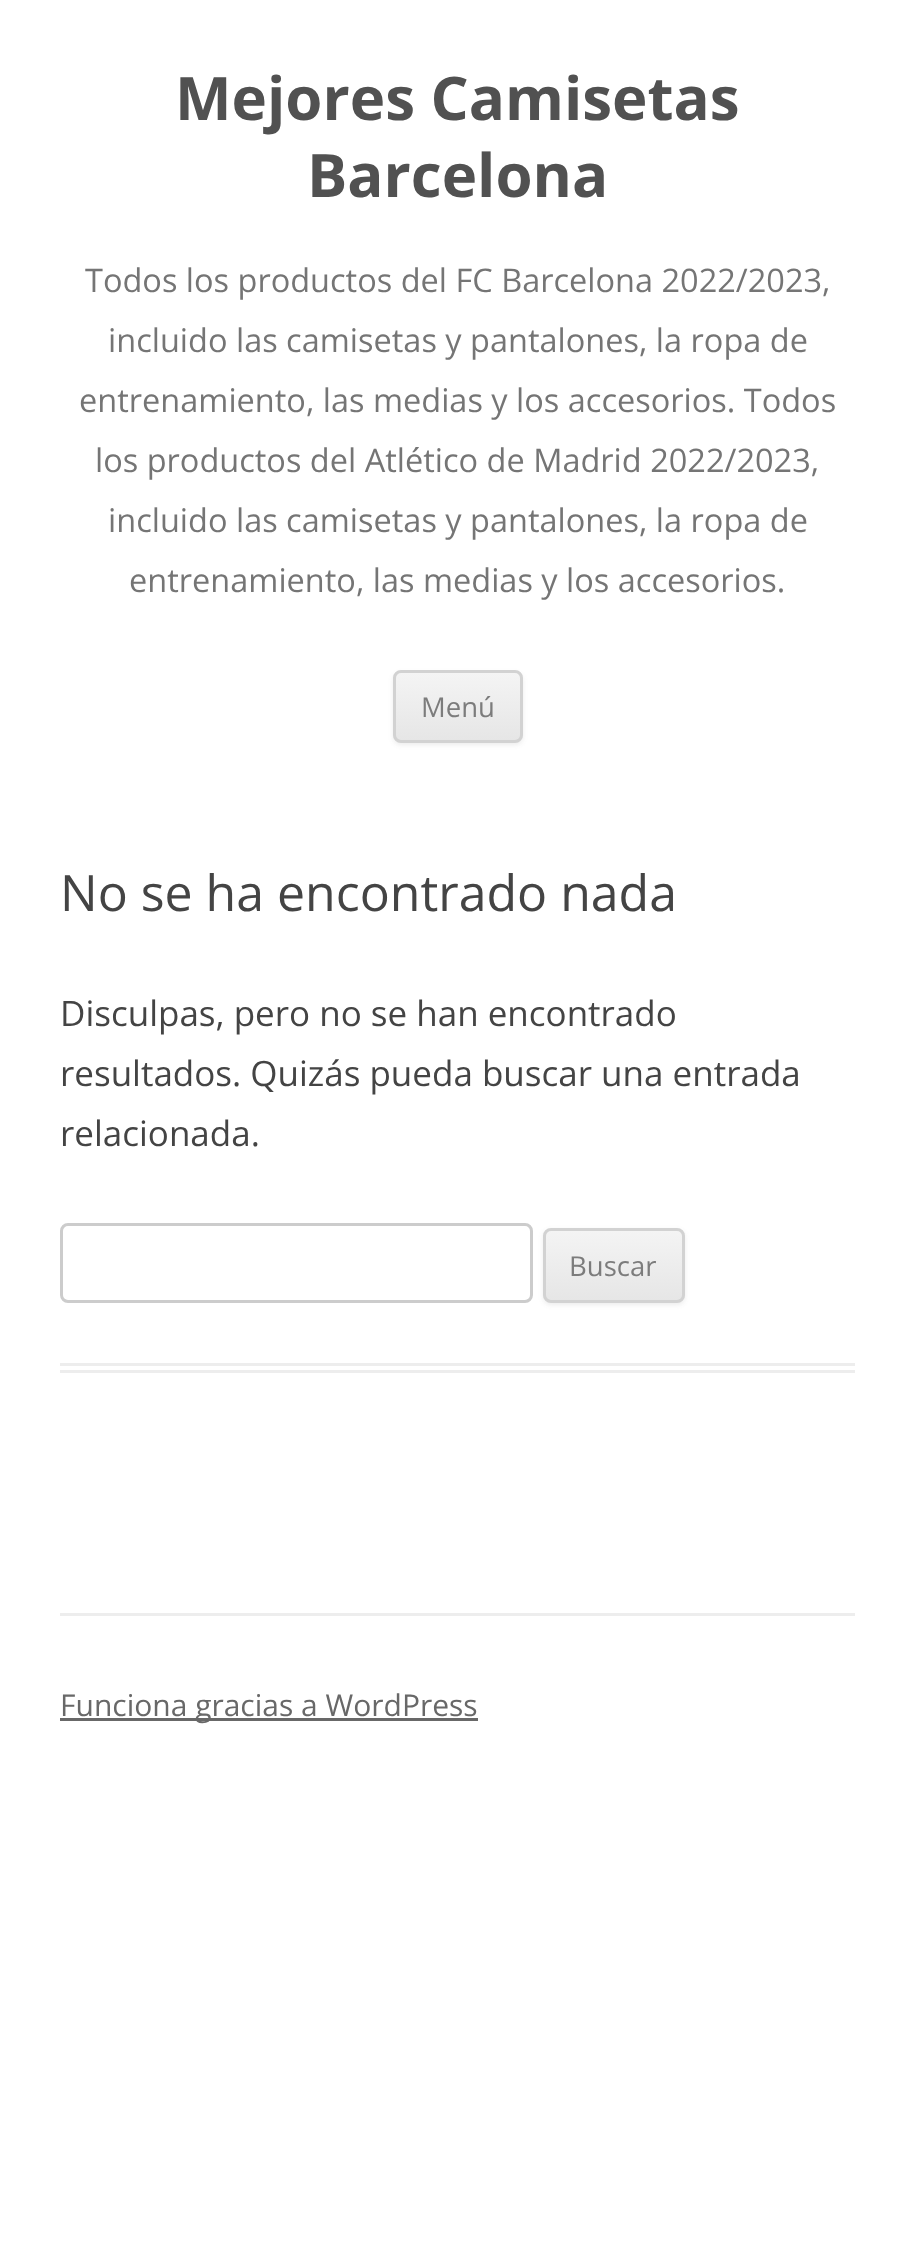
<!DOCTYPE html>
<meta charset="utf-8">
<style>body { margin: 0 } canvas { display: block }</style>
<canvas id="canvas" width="913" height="2250"></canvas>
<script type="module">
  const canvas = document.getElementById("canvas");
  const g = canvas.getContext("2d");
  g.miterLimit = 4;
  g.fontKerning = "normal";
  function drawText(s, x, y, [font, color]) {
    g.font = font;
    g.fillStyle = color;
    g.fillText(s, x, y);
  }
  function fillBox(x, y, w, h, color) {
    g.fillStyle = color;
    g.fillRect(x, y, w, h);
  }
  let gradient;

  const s1 = ["bold 60px Open Sans", "#515151"];
  const s2 = ["32.5px Open Sans", "#757575"];
  const s3 = ["27.5px Open Sans", "#7C7C7C"];
  const s4 = ["50px Open Sans", "#444444"];
  const s5 = ["35px Open Sans", "#444444"];
  const s6 = ["30px Open Sans", "#686868"];

  fillBox(0, 0, 913, 2250, "#FFFFFF");
  drawText("Mejores Camisetas", 175, 120, s1);
  drawText("Barcelona", 307, 197, s1);
  drawText("Todos los productos del FC Barcelona 2022/2023,", 85, 292, s2);
  drawText("incluido las camisetas y pantalones, la ropa de", 108, 352, s2);
  drawText("entrenamiento, las medias y los accesorios. Todos", 79, 412, s2);
  drawText("los productos del Atlético de Madrid 2022/2023,", 95, 472, s2);
  drawText("incluido las camisetas y pantalones, la ropa de", 108, 532, s2);
  drawText("entrenamiento, las medias y los accesorios.", 129, 592, s2);
  g.fillStyle = "rgba(64, 64, 64, 0.1)";
  g.filter = "blur(2.5px)";
  g.beginPath();
  g.roundRect(393, 673, 130, 72, 8);
  g.fill();
  g.filter = "none";
  g.save();
  g.beginPath();
  g.roundRect(393, 670, 130, 73, 8);
  g.clip();
  gradient = g.createLinearGradient(458, 673, 458, 740);
  gradient.addColorStop(0, "#F4F4F4");
  gradient.addColorStop(1, "#E6E6E6");
  g.fillStyle = gradient;
  g.fillRect(393, 673, 130, 67);
  g.restore();
  g.beginPath();
  g.roundRect(394.5, 671.5, 127, 70, 6.5);
  g.strokeStyle = "#D2D2D2";
  g.lineWidth = 3;
  g.stroke();
  drawText("Menú", 421, 717, s3);
  fillBox(60, 1363, 795, 3, "#EDEDED");
  fillBox(60, 1370, 795, 3, "#EDEDED");
  drawText("No se ha encontrado nada", 60, 911, s4);
  drawText("Disculpas, pero no se han encontrado", 60, 1026, s5);
  drawText("resultados. Quizás pueda buscar una entrada", 60, 1086, s5);
  drawText("relacionada.", 60, 1146, s5);
  g.beginPath();
  g.roundRect(61.5, 1224.5, 470, 77, 6.5);
  g.strokeStyle = "#CCCCCC";
  g.stroke();
  g.fillStyle = "rgba(64, 64, 64, 0.1)";
  g.filter = "blur(2.5px)";
  g.beginPath();
  g.roundRect(543, 1230, 142, 75, 8);
  g.fill();
  g.filter = "none";
  g.save();
  g.beginPath();
  g.roundRect(543, 1228, 142, 75, 8);
  g.clip();
  gradient = g.createLinearGradient(614, 1230, 614, 1300);
  gradient.addColorStop(0, "#F4F4F4");
  gradient.addColorStop(1, "#E6E6E6");
  g.fillStyle = gradient;
  g.fillRect(543, 1230, 142, 70);
  g.restore();
  g.beginPath();
  g.roundRect(544.5, 1229.5, 139, 72, 6.5);
  g.strokeStyle = "#D2D2D2";
  g.stroke();
  drawText("Buscar", 569, 1276, s3);
  fillBox(60, 1613, 795, 3, "#EDEDED");
  fillBox(60, 1718, 418, 3, "#686868");
  drawText("Funciona gracias a WordPress", 60, 1716, s6);
</script>
